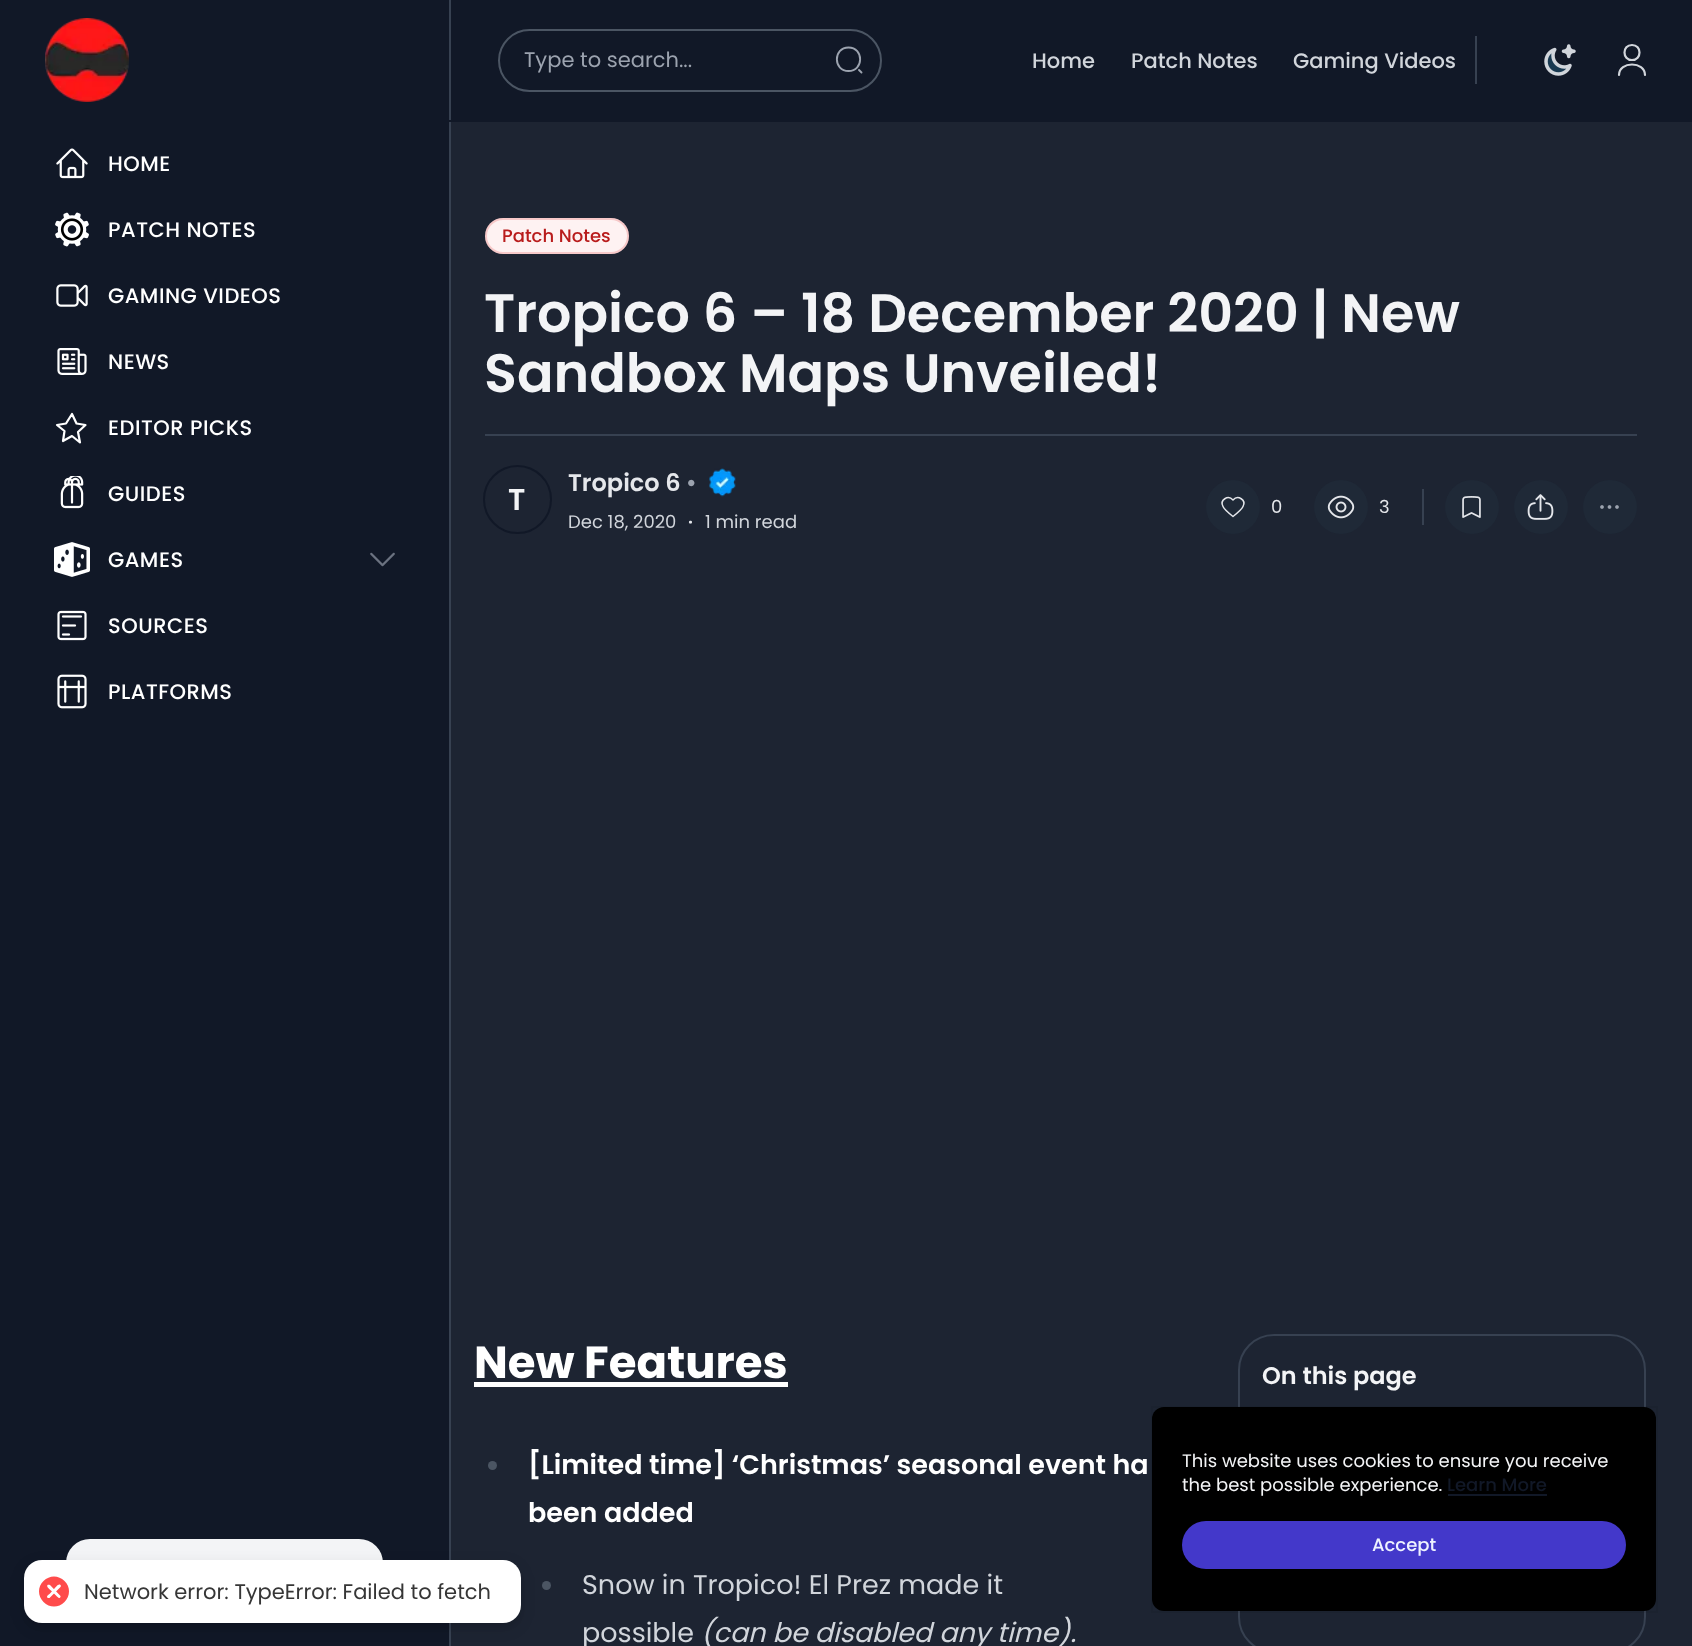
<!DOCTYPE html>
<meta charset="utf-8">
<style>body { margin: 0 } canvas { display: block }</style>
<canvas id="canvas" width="1692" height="1646"></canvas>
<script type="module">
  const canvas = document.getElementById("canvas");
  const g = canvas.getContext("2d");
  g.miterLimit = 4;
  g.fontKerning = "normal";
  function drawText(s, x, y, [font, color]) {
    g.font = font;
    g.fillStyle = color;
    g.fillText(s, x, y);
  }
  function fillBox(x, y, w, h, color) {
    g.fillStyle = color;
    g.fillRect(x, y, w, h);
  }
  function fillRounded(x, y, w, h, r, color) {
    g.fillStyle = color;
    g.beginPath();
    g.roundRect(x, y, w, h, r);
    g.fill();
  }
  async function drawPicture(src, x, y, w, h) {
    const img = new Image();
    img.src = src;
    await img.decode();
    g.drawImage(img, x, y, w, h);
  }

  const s1 = ["21px Poppins", "#9CA3AF"];
  const s2 = ["500 21px Poppins", "#D1D5DB"];
  const s3 = ["500 21px Poppins", "#FFFFFF"];
  const s4 = ["500 18px Poppins", "#B91C1C"];
  const s5 = ["600 54px Poppins", "#F3F4F6"];
  const s6 = ["600 30px Poppins", "#F3F4F6"];
  const s7 = ["600 24px Poppins", "#E5E7EB"];
  const s8 = ["bold 21px Poppins", "#9CA3AF"];
  const s9 = ["18px Poppins", "#D1D5DB"];
  const s10 = ["600 18px Poppins", "#E5E7EB"];
  const s11 = ["18px Poppins", "#E5E7EB"];
  const s12 = ["bold 45px Poppins", "#FFFFFF"];
  const s13 = ["600 27px Poppins", "#FFFFFF"];
  const s14 = ["27px Poppins", "#D1D5DB"];
  const s15 = ["italic 27px Poppins", "#D1D5DB"];
  const s16 = ["600 24px Poppins", "#F3F4F6"];
  const s17 = ["18px Poppins", "#F3F4F6"];
  const s18 = ["500 18px Poppins", "#111827"];
  const s19 = ["500 18px Poppins", "#EEF2FF"];
  const s20 = ["21px Poppins", "#363636"];

  fillBox(0, 0, 1692, 1646, "#1D2432");
  fillBox(0, 0, 1692, 122, "#111827");
  await drawPicture("pic1.png", 45, 18, 84, 84);
  fillBox(449, 0, 2, 120, "#374151");
  g.beginPath();
  g.roundRect(499, 30, 382, 61, 30.5);
  g.strokeStyle = "#4B5563";
  g.lineWidth = 2;
  g.stroke();
  drawText("Type to search...", 524, 67, s1);
  g.beginPath();
  g.moveTo(848.5, 71);
  g.bezierCurveTo(864, 71, 864, 47.5, 848.5, 47.5);
  g.bezierCurveTo(833, 47.5, 833, 71, 848.5, 71);
  g.closePath();
  g.moveTo(861.5, 72.5);
  g.lineTo(859, 70);
  g.strokeStyle = "#9CA3AF";
  g.lineWidth = 1.9;
  g.lineCap = "round";
  g.lineJoin = "round";
  g.stroke();
  drawText("Home", 1032, 68, s2);
  drawText("Patch Notes", 1131, 68, s2);
  drawText("Gaming Videos", 1293, 68, s2);
  fillBox(1475, 36, 2, 48, "#374151");
  await drawPicture("pic2.png", 1544, 44, 32, 32);
  g.beginPath();
  g.moveTo(1632, 60);
  g.bezierCurveTo(1642, 60, 1642, 45, 1632, 45);
  g.bezierCurveTo(1622, 45, 1622, 60, 1632, 60);
  g.closePath();
  g.moveTo(1645, 75);
  g.bezierCurveTo(1645, 61, 1619, 61, 1619, 75);
  g.strokeStyle = "#D1D5DB";
  g.lineWidth = 2.2;
  g.stroke();
  fillBox(0, 122, 449, 1524, "#111827");
  fillBox(449, 122, 2, 1524, "#374151");
  await drawPicture("pic3.png", 56, 148, 32, 31);
  g.letterSpacing = "0.5px";
  drawText("HOME", 108, 171, s3);
  await drawPicture("pic4.png", 55, 212, 34, 35);
  drawText("PATCH NOTES", 108, 237, s3);
  await drawPicture("pic5.png", 56, 284, 32, 23);
  drawText("GAMING VIDEOS", 108, 303, s3);
  await drawPicture("pic6.png", 57, 348, 30, 27);
  drawText("NEWS", 108, 369, s3);
  g.beginPath();
  g.moveTo(72, 414);
  g.lineTo(76.5, 423.5);
  g.lineTo(85.5, 425);
  g.lineTo(78, 432);
  g.lineTo(80, 442.5);
  g.lineTo(72, 436);
  g.lineTo(63, 441);
  g.lineTo(64.5, 431);
  g.lineTo(57, 425);
  g.lineTo(66, 423.5);
  g.closePath();
  g.strokeStyle = "#FFFFFF";
  g.stroke();
  drawText("EDITOR PICKS", 108, 435, s3);
  await drawPicture("pic7.png", 60, 476, 24, 33);
  drawText("GUIDES", 108, 501, s3);
  await drawPicture("pic8.png", 54, 542, 36, 35);
  drawText("GAMES", 108, 567, s3);
  await drawPicture("pic9.png", 370, 552, 25, 15);
  await drawPicture("pic10.png", 57, 610, 30, 31);
  drawText("SOURCES", 108, 633, s3);
  await drawPicture("pic11.png", 57, 674, 30, 35);
  drawText("PLATFORMS", 108, 699, s3);
  fillRounded(66, 1539, 317, 78, 24, "#F3F4F6");
  fillRounded(485, 218, 144, 36, 18, "#FEF2F2");
  g.beginPath();
  g.roundRect(486, 219, 142, 34, 17);
  g.strokeStyle = "rgba(220, 38, 38, 0.2)";
  g.lineWidth = 2;
  g.lineJoin = "miter";
  g.stroke();
  g.letterSpacing = "0px";
  drawText("Patch Notes", 502, 242, s4);
  drawText("Tropico 6 – 18 December 2020 | New", 484, 332, s5);
  drawText("Sandbox Maps Unveiled!", 484, 392, s5);
  fillBox(485, 434, 1152, 2, "#374151");
  g.beginPath();
  g.arc(517.5, 499.5, 33.5, 0, Math.PI * 2);
  g.strokeStyle = "#111827";
  g.stroke();
  drawText("T", 508, 510, s6);
  drawText("Tropico 6", 568, 491, s7);
  drawText("•", 686, 490, s8);
  await drawPicture("pic12.png", 709, 468, 27, 29);
  drawText("Dec 18, 2020", 568, 528, s9);
  drawText("·", 688, 528, s10);
  drawText("1 min read", 705, 528, s9);
  g.fillStyle = "#1F2937";
  g.beginPath();
  g.arc(1233, 507, 27, 0, Math.PI * 2);
  g.fill();
  g.beginPath();
  g.moveTo(1233, 500);
  g.bezierCurveTo(1228, 494.5, 1219.5, 500, 1223, 506.5);
  g.bezierCurveTo(1224, 509, 1230.5, 514.5, 1233, 516.5);
  g.bezierCurveTo(1235.5, 514.5, 1242, 509, 1243, 506.5);
  g.bezierCurveTo(1246.5, 500, 1238, 494.5, 1233, 500);
  g.closePath();
  g.strokeStyle = "#E5E7EB";
  g.lineWidth = 1.5;
  g.lineJoin = "round";
  g.stroke();
  drawText("0", 1271, 513, s11);
  g.fillStyle = "#1F2937";
  g.beginPath();
  g.arc(1341, 507, 27, 0, Math.PI * 2);
  g.fill();
  await drawPicture("pic13.png", 1327, 495, 28, 24);
  drawText("3", 1379, 513, s11);
  fillBox(1422, 489, 2, 36, "#374151");
  g.fillStyle = "#1F2937";
  g.beginPath();
  g.arc(1472, 507, 27, 0, Math.PI * 2);
  g.fill();
  await drawPicture("pic14.png", 1462, 496, 19, 22);
  g.beginPath();
  g.arc(1541, 507, 27, 0, Math.PI * 2);
  g.fill();
  await drawPicture("pic15.png", 1527, 494, 27, 26);
  g.beginPath();
  g.arc(1610, 507, 27, 0, Math.PI * 2);
  g.fill();
  await drawPicture("pic16.png", 1600, 505, 19, 4);
  drawText("New Features", 474, 1378, s12);
  fillBox(474, 1382, 314, 5, "#FFFFFF");
  g.fillStyle = "#4B5563";
  g.beginPath();
  g.arc(492.5, 1465.5, 4.5, 0, Math.PI * 2);
  g.fill();
  drawText("[Limited time] ‘Christmas’ seasonal event ha", 528, 1474, s13);
  drawText("been added", 528, 1522, s13);
  g.fillStyle = "#4B5563";
  g.beginPath();
  g.arc(546.5, 1585.5, 4.5, 0, Math.PI * 2);
  g.fill();
  drawText("Snow in Tropico! El Prez made it", 582, 1594, s14);
  drawText("possible", 582, 1642, s14);
  drawText("(can be disabled any time).", 701, 1642, s15);
  g.beginPath();
  g.roundRect(1239, 1335, 406, 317, 35);
  g.strokeStyle = "#374151";
  g.lineWidth = 2;
  g.lineJoin = "miter";
  g.stroke();
  drawText("On this page", 1262, 1384, s16);
  g.strokeStyle = "rgba(0, 0, 0, 0.05)";
  g.strokeRect(1152, 1407, 505, 205);
  fillRounded(1152, 1407, 504, 204, 12, "#000000");
  drawText("This website uses cookies to ensure you receive", 1182, 1467, s17);
  drawText("the best possible experience.", 1182, 1491, s17);
  drawText("Learn More", 1447, 1491, s18);
  fillBox(1448, 1494, 99, 2, "#111827");
  fillRounded(1182, 1521, 444, 48, 24, "#4338CA");
  drawText("Accept", 1372, 1551, s19);
  g.fillStyle = "rgba(0, 0, 0, 0.05)";
  g.filter = "blur(2px)";
  g.beginPath();
  g.roundRect(24, 1565, 497, 63, 18);
  g.fill();
  g.filter = "none";
  g.fillStyle = "rgba(0, 0, 0, 0.1)";
  g.filter = "blur(7.5px)";
  g.beginPath();
  g.roundRect(24, 1565, 497, 63, 18);
  g.fill();
  g.filter = "none";
  fillRounded(24, 1560, 497, 63, 18, "#FFFFFF");
  g.fillStyle = "#FF4B4B";
  g.beginPath();
  g.moveTo(64.5, 1581);
  g.bezierCurveTo(70.5, 1586.5, 70.5, 1596, 64.5, 1602);
  g.bezierCurveTo(58.5, 1608, 49.5, 1608, 43.5, 1602);
  g.bezierCurveTo(37.5, 1596, 37.5, 1586.5, 43.5, 1581);
  g.bezierCurveTo(49.5, 1575, 58.5, 1575, 64.5, 1581);
  g.closePath();
  g.fill();
  g.fillStyle = "#FFFFFF";
  g.beginPath();
  g.moveTo(60.5, 1587);
  g.lineTo(49.5, 1598);
  g.lineTo(48, 1598);
  g.bezierCurveTo(45.5, 1597, 48.5, 1594.5, 49.5, 1594);
  g.lineTo(54.5, 1588.5);
  g.bezierCurveTo(55.5, 1587.5, 58.5, 1583, 60.5, 1585);
  g.bezierCurveTo(61, 1585.5, 61, 1586.5, 60.5, 1587);
  g.closePath();
  g.fill();
  g.beginPath();
  g.moveTo(50, 1585);
  g.lineTo(60.5, 1596);
  g.lineTo(60.5, 1597);
  g.bezierCurveTo(59.5, 1599.5, 57, 1596.5, 56.5, 1596);
  g.lineTo(51, 1590.5);
  g.bezierCurveTo(50.5, 1590, 46, 1587, 47.5, 1585);
  g.bezierCurveTo(48, 1584.5, 49, 1584.5, 50, 1585);
  g.closePath();
  g.fill();
  drawText("Network error: TypeError: Failed to fetch", 84, 1599, s20);
</script>
